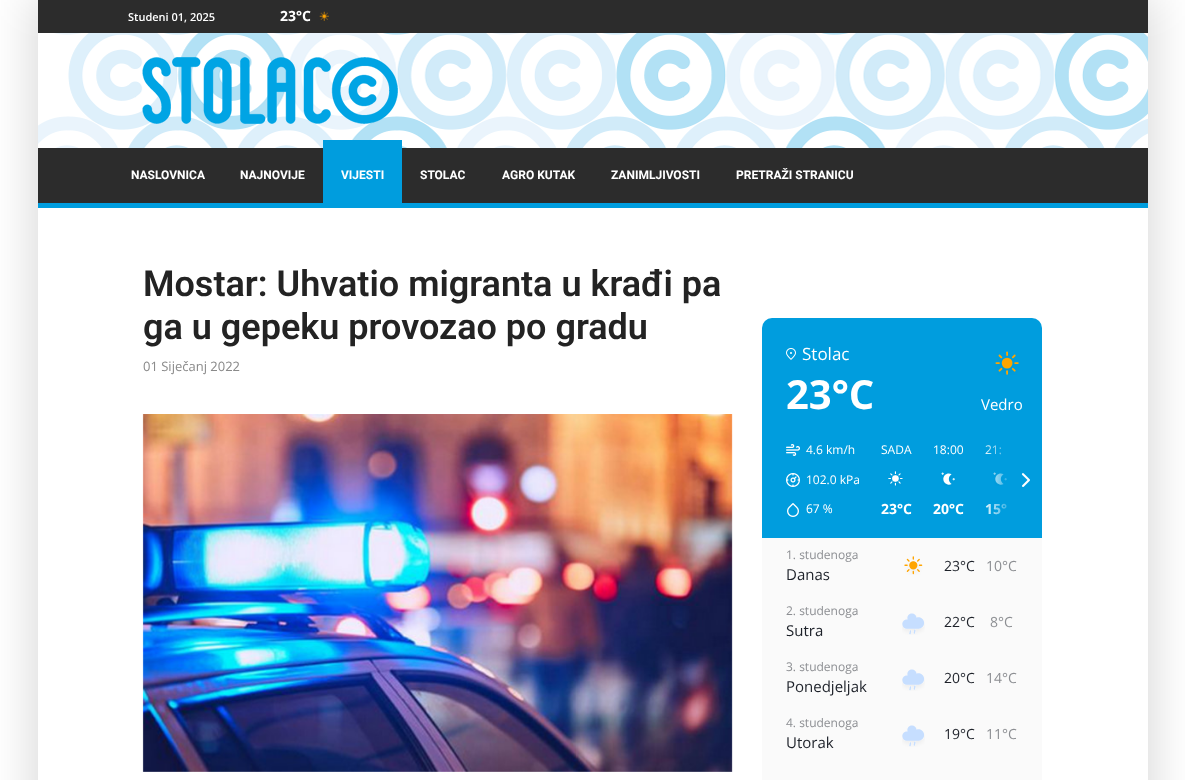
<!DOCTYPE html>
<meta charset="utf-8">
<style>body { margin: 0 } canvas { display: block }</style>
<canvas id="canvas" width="1185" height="780"></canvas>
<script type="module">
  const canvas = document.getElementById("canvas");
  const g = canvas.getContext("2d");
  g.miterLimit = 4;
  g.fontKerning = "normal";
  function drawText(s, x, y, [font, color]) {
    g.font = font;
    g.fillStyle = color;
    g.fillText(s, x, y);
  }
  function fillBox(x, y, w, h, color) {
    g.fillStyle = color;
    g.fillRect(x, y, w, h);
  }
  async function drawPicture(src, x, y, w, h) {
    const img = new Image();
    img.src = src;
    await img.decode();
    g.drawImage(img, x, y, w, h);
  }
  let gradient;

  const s1 = ["600 11px Open Sans", "#FFFFFF"];
  const s2 = ["bold 14px Open Sans", "#FFFFFF"];
  const s3 = ["bold 12px Heebo", "#FFFFFF"];
  const s4 = ["600 36px Roboto", "#232323"];
  const s5 = ["13px Open Sans", "#8A8A8A"];
  const s6 = ["17px Open Sans", "#FFFFFF"];
  const s7 = ["bold 40px Open Sans", "#FFFFFF"];
  const s8 = ["15px Open Sans", "#FFFFFF"];
  const s9 = ["12px Open Sans", "#FFFFFF"];
  const s10 = ["12px Open Sans", "#8C8E92"];
  const s11 = ["15px Open Sans", "#1D2129"];
  const s12 = ["14px Open Sans", "#1D2129"];
  const s13 = ["14px Open Sans", "#8C8E92"];

  fillBox(0, 0, 1185, 780, "#FFFFFF");
  g.save();
  g.beginPath();
  g.moveTo(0, 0);
  g.lineTo(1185, 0);
  g.lineTo(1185, 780);
  g.lineTo(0, 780);
  g.closePath();
  g.moveTo(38, 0);
  g.lineTo(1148, 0);
  g.lineTo(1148, 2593);
  g.lineTo(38, 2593);
  g.closePath();
  g.clip("evenodd");
  g.fillStyle = "rgba(0, 0, 0, 0.15)";
  g.filter = "blur(22.5px)";
  g.beginPath();
  g.rect(33, -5, 1120, 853);
  g.fill();
  g.filter = "none";
  g.restore();
  fillBox(38, 0, 1110, 33, "#2C2C2C");
  drawText("Studeni 01, 2025", 128, 21, s1);
  drawText("23°C", 280, 21, s2);
  await drawPicture("pic1.png", 319, 11, 10, 10);
  await drawPicture("pic2.png", 38, 33, 1110, 115);
  await drawPicture("pic3.png", 142, 57, 256, 67);
  fillBox(38, 148, 1110, 55, "#2C2C2C");
  fillBox(38, 203, 1110, 5, "#009DDE");
  drawText("NASLOVNICA", 131, 179, s3);
  drawText("NAJNOVIJE", 240, 179, s3);
  fillBox(323, 140, 79, 63, "#009DDE");
  drawText("VIJESTI", 341, 179, s3);
  drawText("STOLAC", 420, 179, s3);
  drawText("AGRO KUTAK", 502, 179, s3);
  drawText("ZANIMLJIVOSTI", 611, 179, s3);
  drawText("PRETRAŽI STRANICU", 736, 179, s3);
  drawText("Mostar: Uhvatio migranta u krađi pa", 143, 296, s4);
  drawText("ga u gepeku provozao po gradu", 143, 339, s4);
  drawText("01 Siječanj 2022", 143, 371, s5);
  await drawPicture("pic4.png", 142, 414, 591, 358);
  g.fillStyle = "#009DDE";
  g.beginPath();
  g.roundRect(762, 318, 280, 220, [10, 10, 0, 0]);
  g.fill();
  await drawPicture("pic5.png", 786, 348, 10, 12);
  drawText("Stolac", 802, 360, s6);
  drawText("23°C", 786, 409, s7);
  await drawPicture("pic6.png", 995, 351, 24, 24);
  drawText("Vedro", 981, 410, s8);
  await drawPicture("pic7.png", 786, 444, 14, 12);
  drawText("4.6 km/h", 806, 454, s9);
  await drawPicture("pic8.png", 786, 473, 14, 14);
  drawText("102.0 kPa", 806, 484, s9);
  await drawPicture("pic9.png", 787, 503, 12, 14);
  drawText("67 %", 806, 513, s9);
  drawText("SADA", 881, 454, s9);
  await drawPicture("pic10.png", 888, 471, 15, 15);
  drawText("23°C", 881, 514, s2);
  drawText("18:00", 933, 454, s9);
  await drawPicture("pic11.png", 941, 472, 14, 14);
  drawText("20°C", 933, 514, s2);
  drawText("21:", 985, 454, s9);
  await drawPicture("pic11.png", 993, 472, 14, 14);
  drawText("15°", 985, 514, s2);
  gradient = g.createLinearGradient(982, 480, 1042, 480);
  gradient.addColorStop(0, "rgba(0, 157, 222, 0)");
  gradient.addColorStop(0.55, "#009DDE");
  g.fillStyle = gradient;
  g.fillRect(985, 445, 22, 70);
  await drawPicture("pic12.png", 1021, 473, 9, 14);
  fillBox(762, 538, 280, 242, "#FAFAFA");
  drawText("1. studenoga", 786, 559, s10);
  drawText("Danas", 786, 580, s11);
  await drawPicture("pic13.png", 904, 556, 19, 19);
  drawText("23°C", 944, 571, s12);
  drawText("10°C", 986, 571, s13);
  drawText("2. studenoga", 786, 615, s10);
  drawText("Sutra", 786, 636, s11);
  await drawPicture("pic14.png", 902, 613, 23, 22);
  drawText("22°C", 944, 627, s12);
  drawText("8°C", 990, 627, s13);
  drawText("3. studenoga", 786, 671, s10);
  drawText("Ponedjeljak", 786, 692, s11);
  await drawPicture("pic14.png", 902, 669, 23, 22);
  drawText("20°C", 944, 683, s12);
  drawText("14°C", 986, 683, s13);
  drawText("4. studenoga", 786, 727, s10);
  drawText("Utorak", 786, 748, s11);
  await drawPicture("pic14.png", 902, 725, 23, 22);
  drawText("19°C", 944, 739, s12);
  drawText("11°C", 986, 739, s13);
</script>
